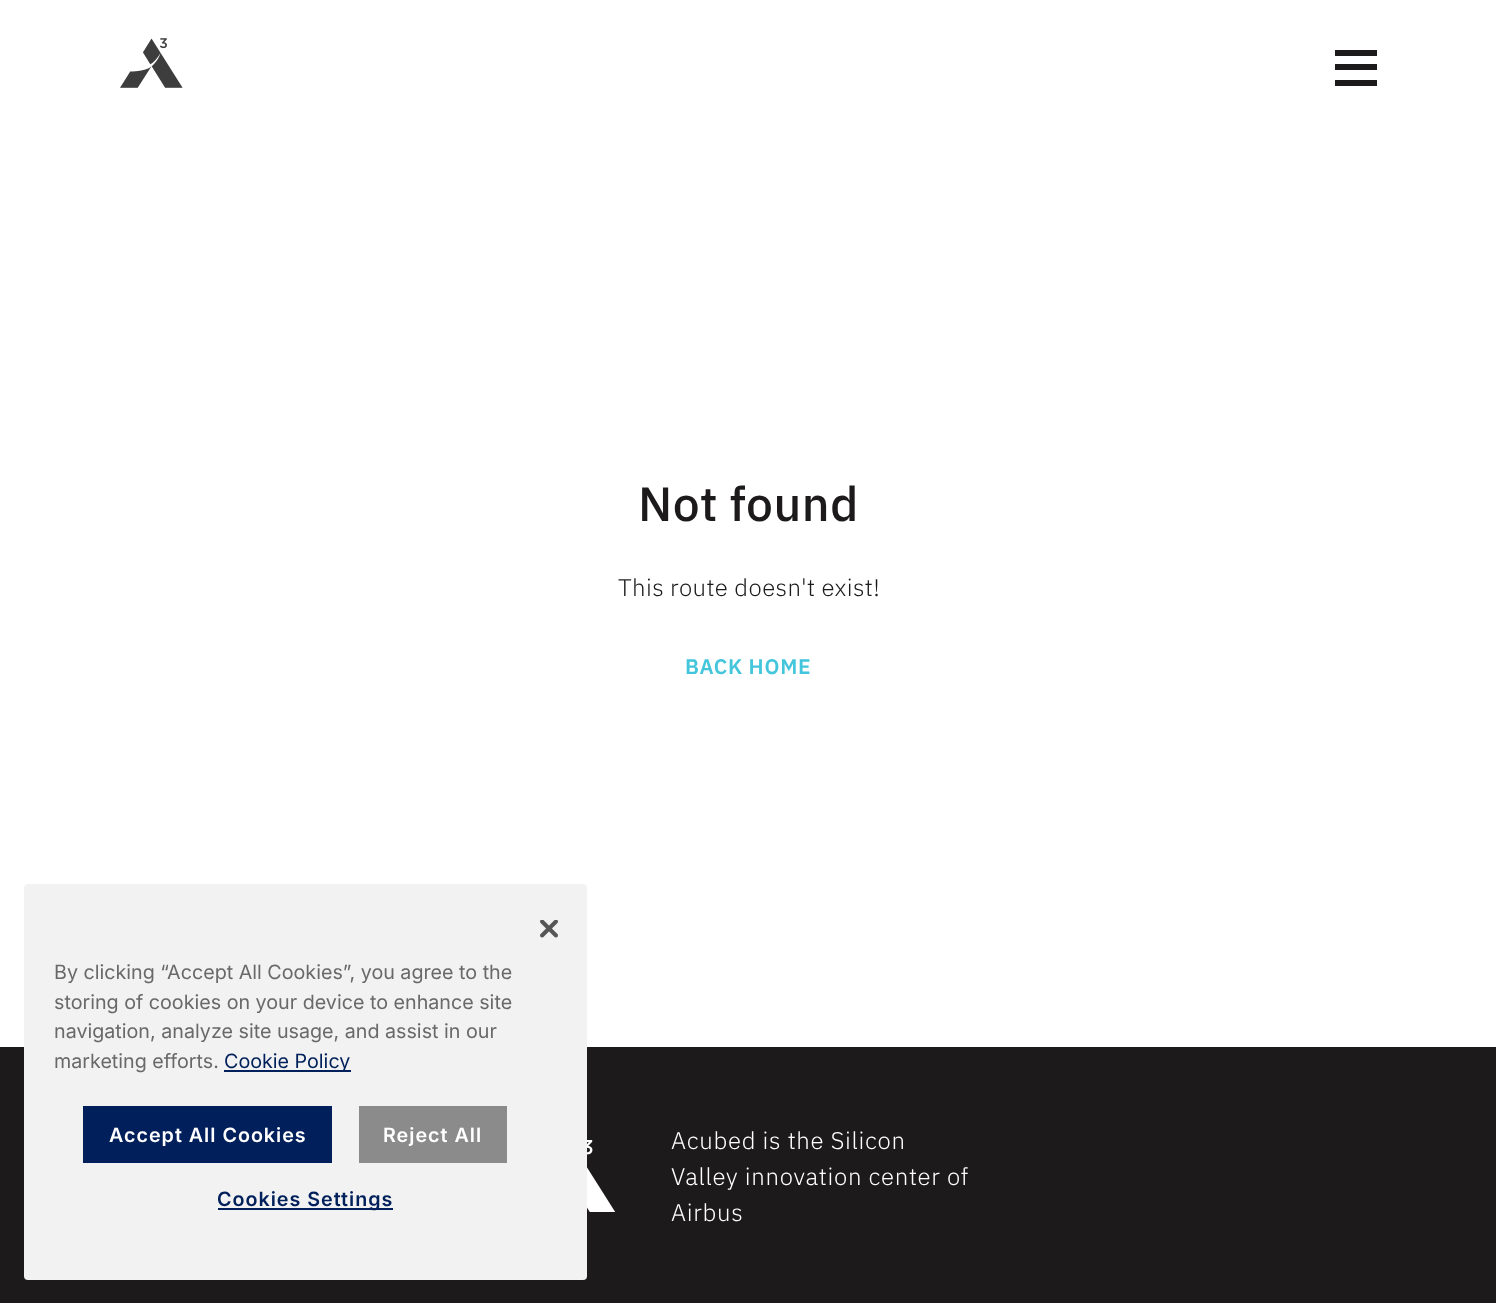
<!DOCTYPE html>
<meta charset="utf-8">
<style>body { margin: 0 } canvas { display: block }</style>
<canvas id="canvas" width="1496" height="1303"></canvas>
<script type="module">
  const canvas = document.getElementById("canvas");
  const g = canvas.getContext("2d");
  g.miterLimit = 4;
  g.fontKerning = "normal";
  function drawText(s, x, y, [font, color]) {
    g.font = font;
    g.fillStyle = color;
    g.fillText(s, x, y);
  }
  function fillBox(x, y, w, h, color) {
    g.fillStyle = color;
    g.fillRect(x, y, w, h);
  }
  function fillRounded(x, y, w, h, r, color) {
    g.fillStyle = color;
    g.beginPath();
    g.roundRect(x, y, w, h, r);
    g.fill();
  }
  async function drawPicture(src, x, y, w, h) {
    const img = new Image();
    img.src = src;
    await img.decode();
    g.drawImage(img, x, y, w, h);
  }

  const s1 = ["19.7px Inter", "#696969"];
  const s2 = ["19.7px Inter", "#00205B"];
  const s3 = ["600 19.7px Inter", "#FFFFFF"];
  const s4 = ["600 19.7px Inter", "#00205B"];
  const s5 = ["500 48px IBM Plex Sans", "#1C1A1A"];
  const s6 = ["300 24px IBM Plex Sans", "#1C1A1A"];
  const s7 = ["600 21px IBM Plex Sans", "#43C6DC"];
  const s8 = ["300 24px IBM Plex Sans", "#FFFFFF"];

  fillBox(0, 0, 1496, 1303, "#FFFFFF");
  fillBox(0, 1047, 1496, 256, "#1C1A1A");
  fillRounded(24, 884, 563, 396, 4, "#F2F2F2");
  await drawPicture("pic1.png", 540, 920, 18, 18);
  drawText("By clicking “Accept All Cookies”, you agree to the", 54, 979, s1);
  drawText("storing of cookies on your device to enhance site", 54, 1009, s1);
  drawText("navigation, analyze site usage, and assist in our", 54, 1038, s1);
  drawText("marketing efforts.", 54, 1068, s1);
  fillBox(224, 1070, 127, 2, "#00205B");
  drawText("Cookie Policy", 224, 1068, s2);
  fillBox(83, 1106, 249, 57, "#011F5A");
  g.letterSpacing = "1px";
  drawText("Accept All Cookies", 109, 1142, s3);
  fillBox(359, 1106, 148, 57, "#8C8B8B");
  drawText("Reject All", 383, 1142, s3);
  fillBox(218, 1208, 175, 2, "#00205B");
  drawText("Cookies Settings", 217, 1206, s4);
  await drawPicture("pic2.png", 120, 38, 63, 50);
  g.fillStyle = "#1C1A1A";
  g.beginPath();
  g.moveTo(1335, 50);
  g.lineTo(1377, 50);
  g.lineTo(1377, 56);
  g.lineTo(1335, 56);
  g.closePath();
  g.moveTo(1335, 64);
  g.lineTo(1377, 64);
  g.lineTo(1377, 70);
  g.lineTo(1335, 70);
  g.closePath();
  g.moveTo(1335, 80);
  g.lineTo(1377, 80);
  g.lineTo(1377, 86);
  g.lineTo(1335, 86);
  g.closePath();
  g.fill("evenodd");
  g.letterSpacing = "0.4px";
  drawText("Not found", 638, 521, s5);
  drawText("This route doesn't exist!", 618, 596, s6);
  g.letterSpacing = "0.75px";
  drawText("BACK HOME", 685, 674, s7);
  await drawPicture("pic3.png", 587, 1140, 29, 72);
  g.letterSpacing = "0.7px";
  drawText("Acubed is the Silicon", 671, 1149, s8);
  drawText("Valley innovation center of", 671, 1185, s8);
  drawText("Airbus", 671, 1221, s8);
</script>
